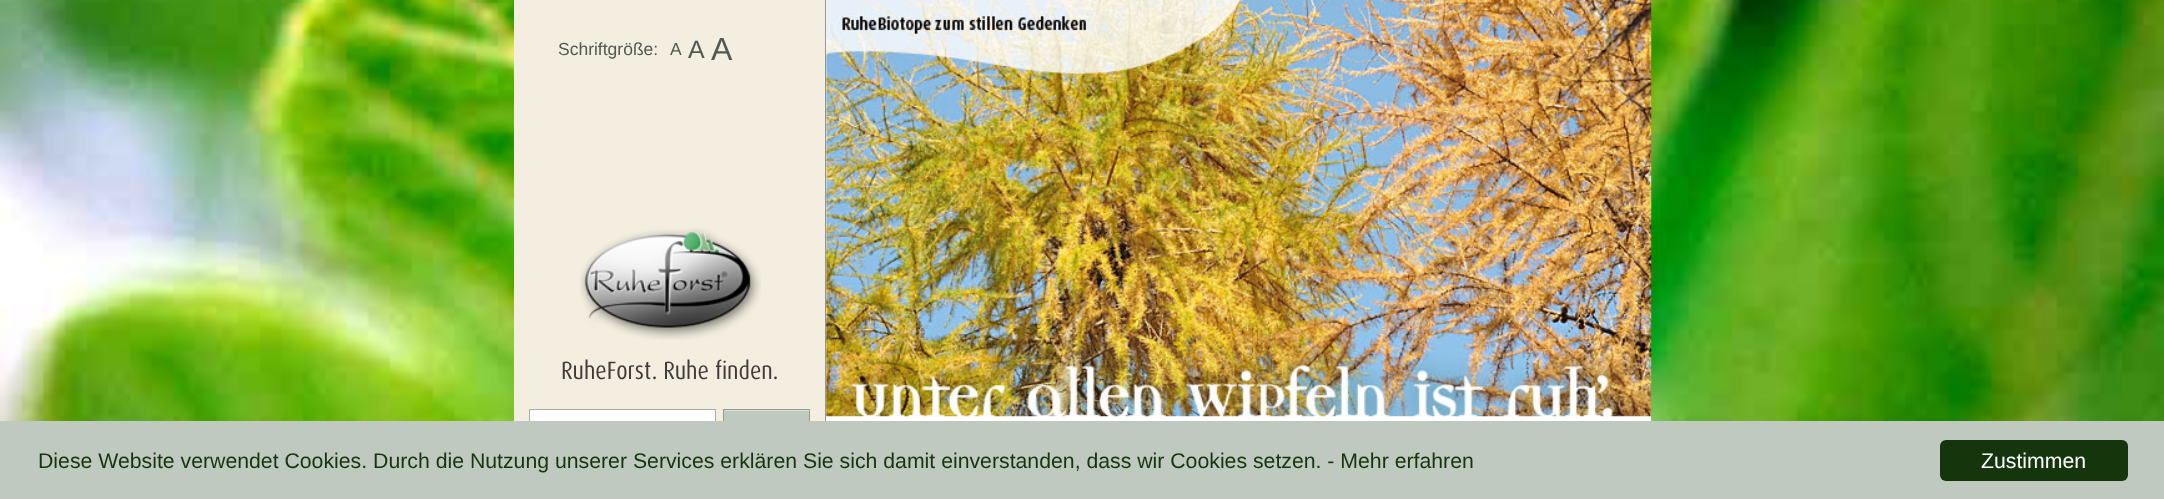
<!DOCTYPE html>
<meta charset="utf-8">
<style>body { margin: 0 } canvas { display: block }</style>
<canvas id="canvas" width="2164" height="499"></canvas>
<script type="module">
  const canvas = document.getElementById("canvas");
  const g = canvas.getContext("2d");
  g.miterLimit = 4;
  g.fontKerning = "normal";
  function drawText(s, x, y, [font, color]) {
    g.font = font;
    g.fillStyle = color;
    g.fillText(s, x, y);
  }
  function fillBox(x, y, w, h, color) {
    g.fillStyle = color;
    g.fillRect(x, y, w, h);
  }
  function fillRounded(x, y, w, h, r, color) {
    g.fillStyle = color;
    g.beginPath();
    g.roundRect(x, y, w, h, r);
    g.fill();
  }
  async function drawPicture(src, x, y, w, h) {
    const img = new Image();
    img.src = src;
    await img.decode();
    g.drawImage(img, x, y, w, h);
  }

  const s1 = ["17.5px Liberation Sans", "#515952"];
  const s2 = ["25px Liberation Sans", "#515952"];
  const s3 = ["32px Liberation Sans", "#515952"];
  const s4 = ["25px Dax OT", "#3E3D39"];
  const s5 = ["21.25px Liberation Sans", "#15350D"];
  const s6 = ["21.25px Liberation Sans", "#FFFFFF"];

  fillBox(0, 0, 2164, 499, "#FFFFFF");
  await drawPicture("pic1.png", 0, 0, 2164, 421);
  fillBox(514, 0, 311, 421, "#F3EEDF");
  fillBox(825, 0, 1, 421, "#99968D");
  drawText("Schriftgröße:", 558, 55, s1);
  drawText("A", 670, 55, s1);
  drawText("A", 688, 58, s2);
  drawText("A", 711, 60, s3);
  await drawPicture("pic2.png", 580, 228, 181, 112);
  drawText("RuheForst. Ruhe finden.", 561, 379, s4);
  fillBox(530, 410, 185, 11, "#FFFFFF");
  g.strokeStyle = "#AEABA1";
  g.strokeRect(529.5, 409.5, 186, 36);
  fillBox(724, 411, 85, 10, "#BEC9BF");
  fillBox(724, 410, 85, 1, "#D2E6D2");
  g.strokeStyle = "#9A9890";
  g.strokeRect(723.5, 409.5, 86, 36);
  fillBox(826, 0, 825, 421, "#FFFFFF");
  await drawPicture("pic3.png", 826, 0, 826, 417);
  fillBox(0, 421, 2164, 78, "#C0C9C0");
  drawText("Diese Website verwendet Cookies. Durch die Nutzung unserer Services erklären Sie sich damit einverstanden, dass wir Cookies setzen. - Mehr erfahren", 38, 468, s5);
  fillRounded(1940, 440, 188, 41, 6, "#15350D");
  drawText("Zustimmen", 1981, 468, s6);
</script>
